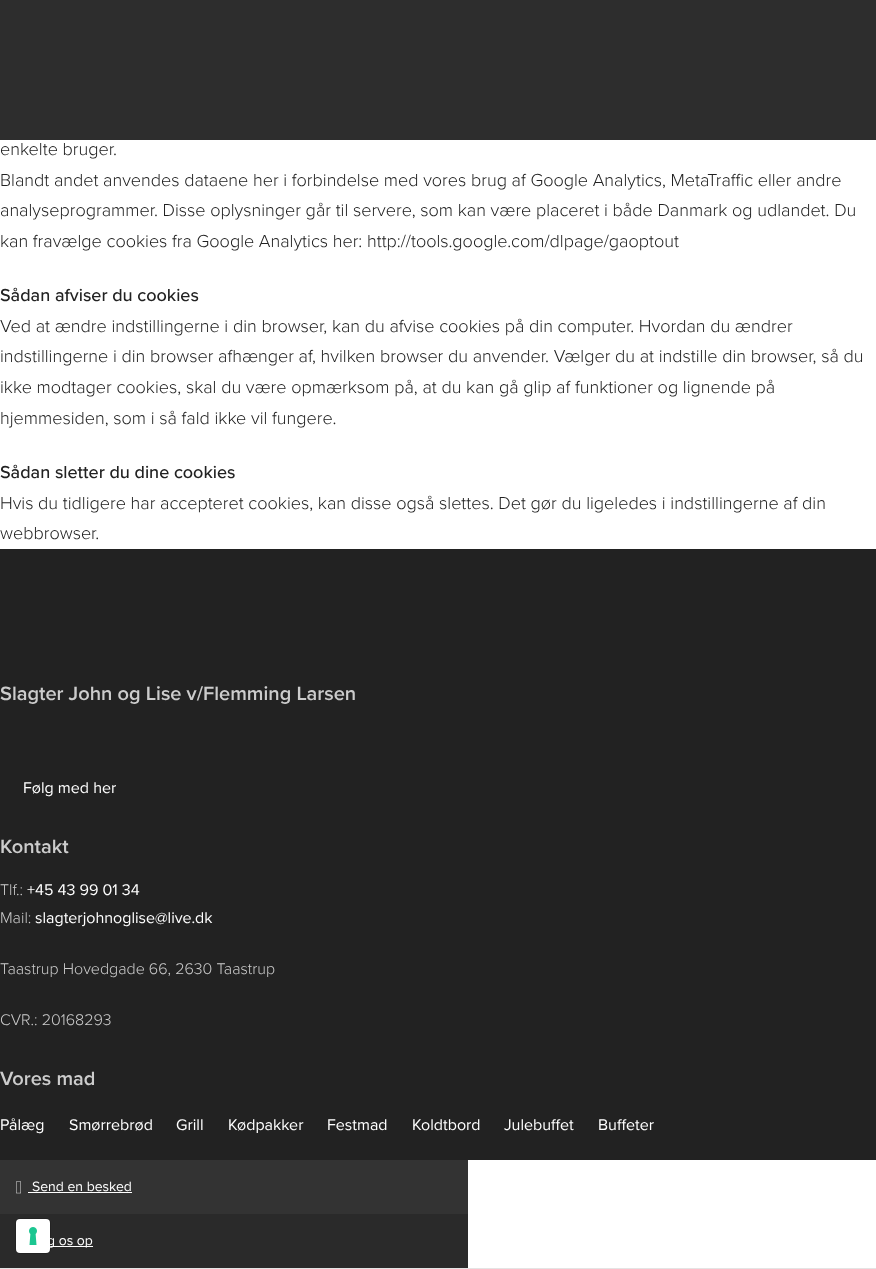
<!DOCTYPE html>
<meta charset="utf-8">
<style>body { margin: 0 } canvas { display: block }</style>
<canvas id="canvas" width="876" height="1269"></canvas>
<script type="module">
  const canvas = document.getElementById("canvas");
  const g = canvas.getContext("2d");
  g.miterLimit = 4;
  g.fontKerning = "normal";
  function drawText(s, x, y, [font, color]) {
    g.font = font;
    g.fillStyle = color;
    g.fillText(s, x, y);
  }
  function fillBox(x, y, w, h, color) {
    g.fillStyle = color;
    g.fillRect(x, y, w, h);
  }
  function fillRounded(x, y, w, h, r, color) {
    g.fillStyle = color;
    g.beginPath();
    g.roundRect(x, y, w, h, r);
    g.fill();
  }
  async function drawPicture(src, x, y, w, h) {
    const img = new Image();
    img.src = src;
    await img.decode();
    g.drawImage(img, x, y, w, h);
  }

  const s1 = ["300 18px Proxima Nova", "#222222"];
  const s2 = ["500 18px Proxima Nova", "#222222"];
  const s3 = ["600 20px Proxima Nova", "#CCCCCC"];
  const s4 = ["16px Proxima Nova", "#FFFFFF"];
  const s5 = ["300 16px Proxima Nova", "#CCCCCC"];
  const s6 = ["14px Proxima Nova", "#FFFFFF"];

  fillBox(0, 0, 876, 1269, "#222222");
  fillBox(0, 0, 876, 140, "#2D2D2D");
  fillBox(0, 140, 876, 409, "#FFFFFF");
  drawText("enkelte bruger.", 0, 155, s1);
  drawText("Blandt andet anvendes dataene her i forbindelse med vores brug af Google Analytics, MetaTraffic eller andre", 0, 186, s1);
  drawText("analyseprogrammer. Disse oplysninger går til servere, som kan være placeret i både Danmark og udlandet. Du", 0, 216, s1);
  drawText("kan fravælge cookies fra Google Analytics her: http://tools.google.com/dlpage/gaoptout", 0, 247, s1);
  drawText("Sådan afviser du cookies", 0, 301, s2);
  drawText("Ved at ændre indstillingerne i din browser, kan du afvise cookies på din computer. Hvordan du ændrer", 0, 332, s1);
  drawText("indstillingerne i din browser afhænger af, hvilken browser du anvender. Vælger du at indstille din browser, så du", 0, 362, s1);
  drawText("ikke modtager cookies, skal du være opmærksom på, at du kan gå glip af funktioner og lignende på", 0, 393, s1);
  drawText("hjemmesiden, som i så fald ikke vil fungere.", 0, 424, s1);
  drawText("Sådan sletter du dine cookies", 0, 478, s2);
  drawText("Hvis du tidligere har accepteret cookies, kan disse også slettes. Det gør du ligeledes i indstillingerne af din", 0, 509, s1);
  drawText("webbrowser.", 0, 539, s1);
  drawText("Slagter John og Lise v/Flemming Larsen", 0, 700, s3);
  drawText("Følg med her", 23, 793, s4);
  drawText("Kontakt", 0, 853, s3);
  drawText("Tlf.:", 0, 895, s5);
  drawText("+45 43 99 01 34", 27, 895, s4);
  drawText("Mail:", 0, 923, s5);
  drawText("slagterjohnoglise@live.dk", 35, 923, s4);
  drawText("Taastrup Hovedgade 66, 2630 Taastrup", 0, 974, s5);
  drawText("CVR.: 20168293", 0, 1025, s5);
  drawText("Vores mad", 0, 1085, s3);
  drawText("Pålæg", 0, 1130, s4);
  drawText("Smørrebrød", 69, 1130, s4);
  drawText("Grill", 176, 1130, s4);
  drawText("Kødpakker", 228, 1130, s4);
  drawText("Festmad", 327, 1130, s4);
  drawText("Koldtbord", 412, 1130, s4);
  drawText("Julebuffet", 504, 1130, s4);
  drawText("Buffeter", 598, 1130, s4);
  fillBox(468, 1160, 408, 108, "#FFFFFF");
  fillBox(0, 1268, 876, 1, "#E4E4E4");
  fillBox(0, 1160, 468, 54, "#333333");
  await drawPicture("pic1.png", 16, 1181, 5, 13);
  drawText("Send en besked", 32, 1191, s6);
  fillBox(28, 1192, 104, 1, "#FFFFFF");
  fillBox(0, 1214, 468, 54, "#2A2A2A");
  fillBox(50, 1246, 43, 1, "#FFFFFF");
  drawText("g os op", 47, 1245, s6);
  g.beginPath();
  g.roundRect(15.5, 1218.5, 35, 35, 4.5);
  g.strokeStyle = "rgba(0, 0, 0, 0.15)";
  g.stroke();
  fillRounded(16, 1219, 34, 34, 4, "#FFFFFF");
  await drawPicture("pic2.png", 29, 1227, 8, 18);
</script>
